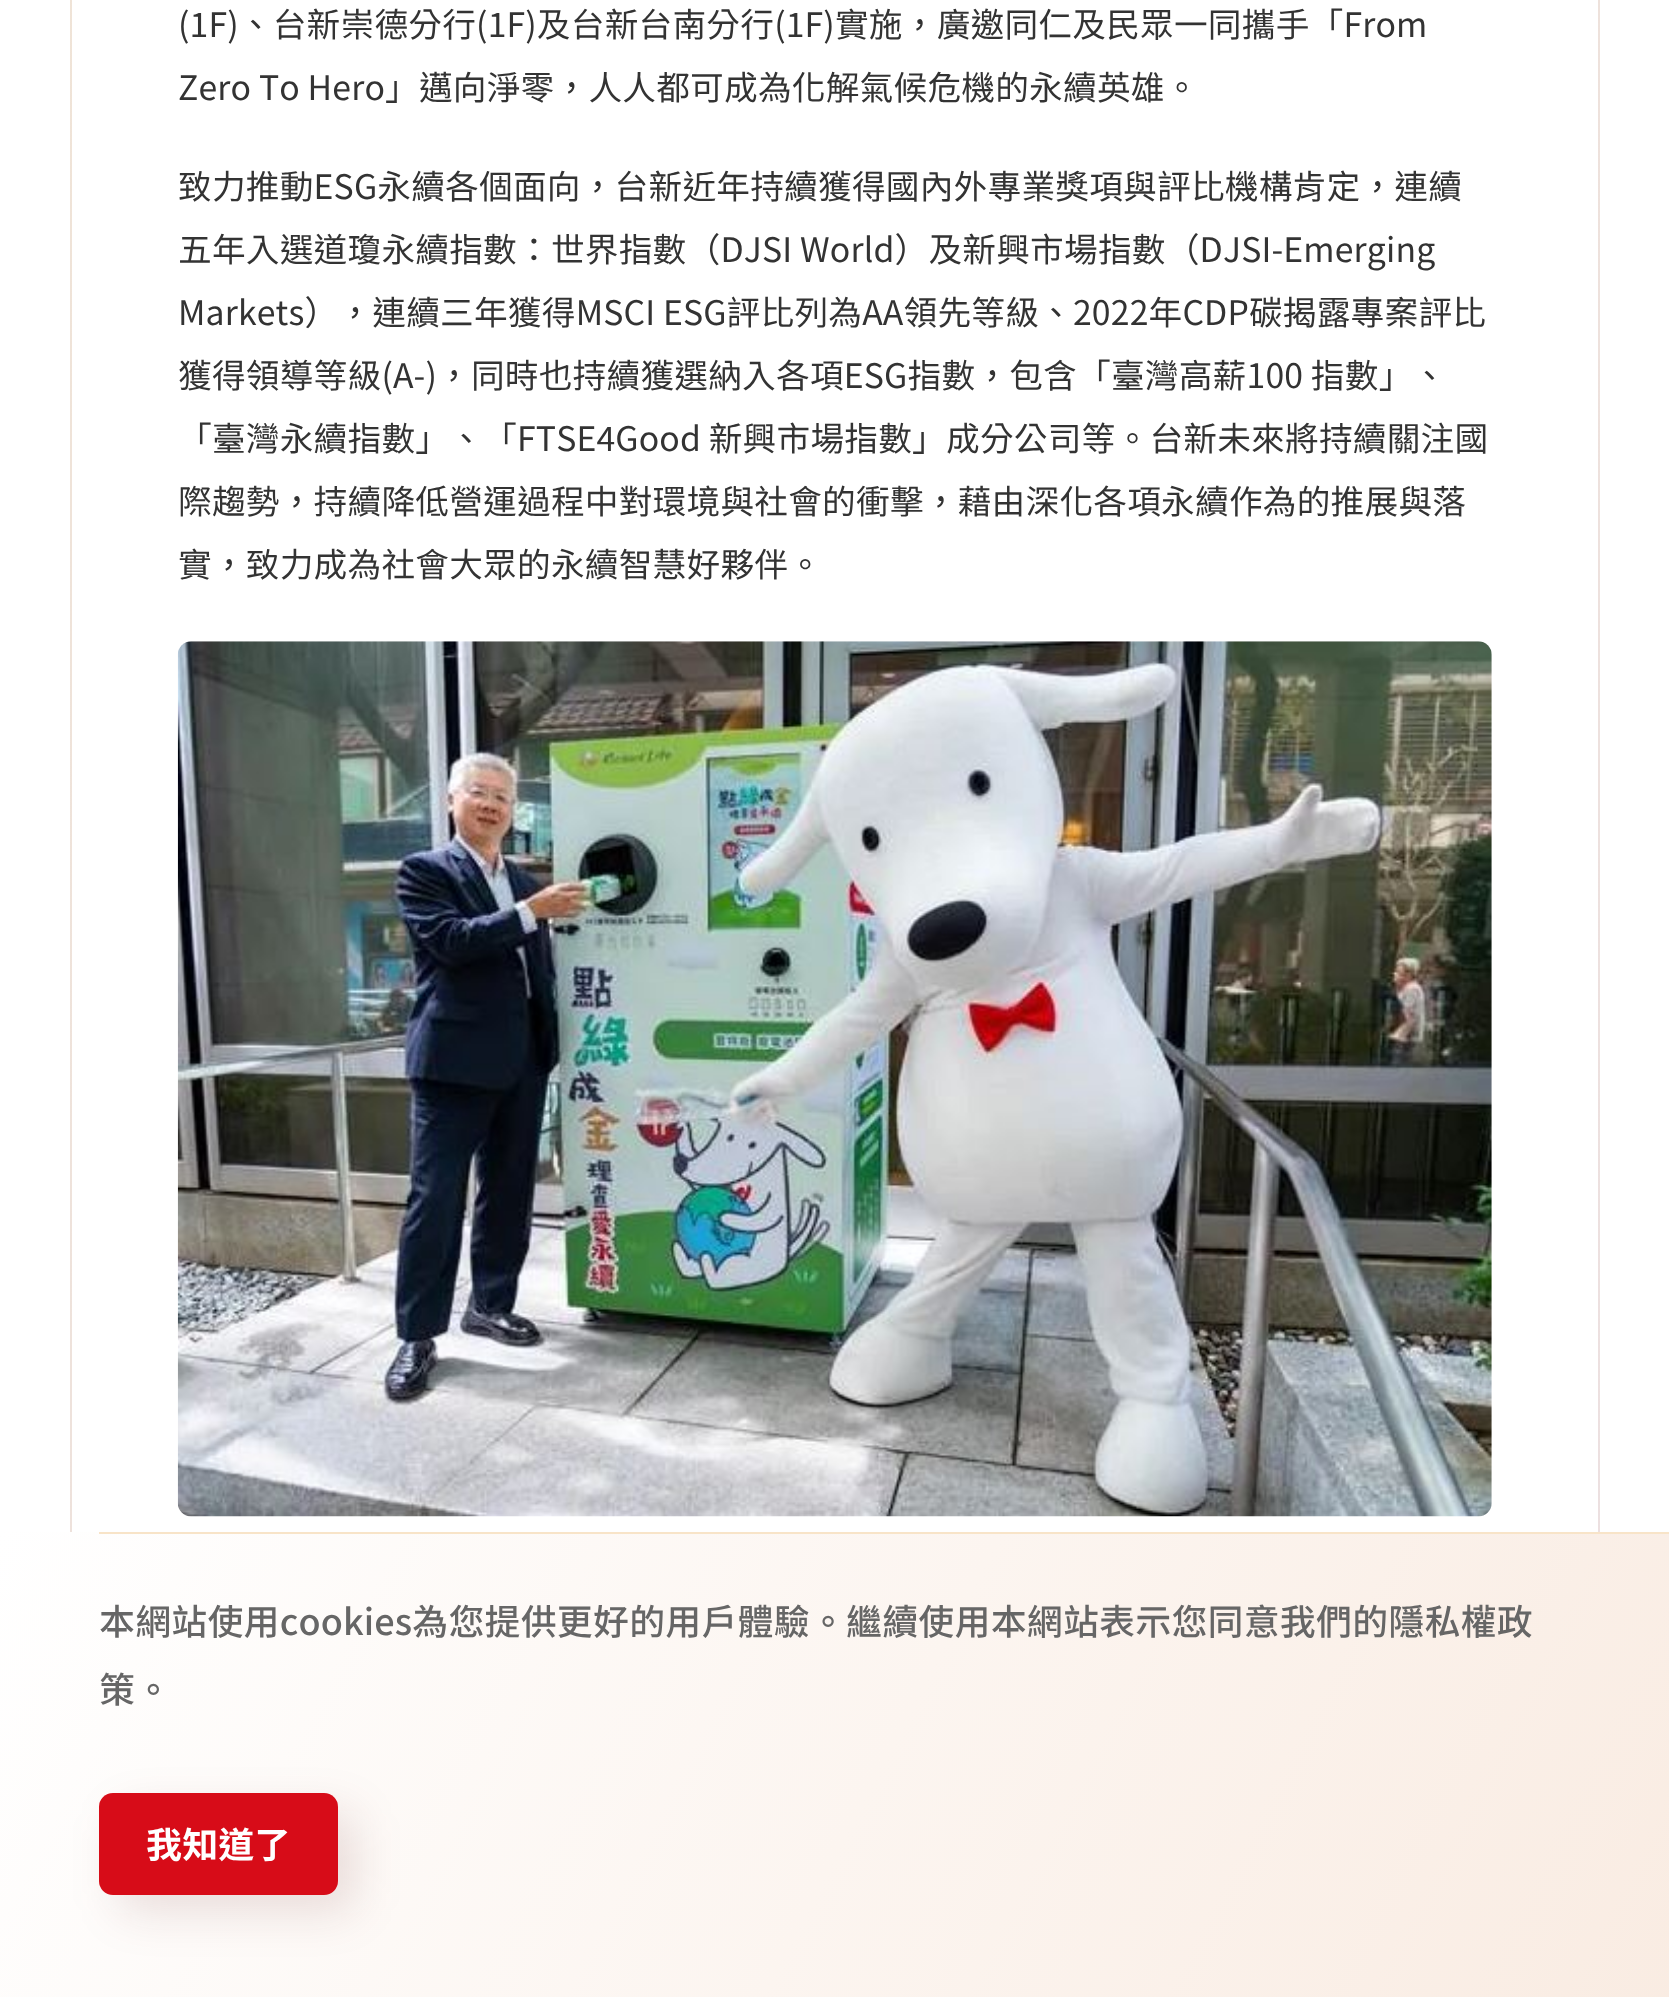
<!DOCTYPE html>
<meta charset="utf-8">
<style>body { margin: 0 } canvas { display: block }</style>
<canvas id="canvas" width="1669" height="1997"></canvas>
<script type="module">
  const canvas = document.getElementById("canvas");
  const g = canvas.getContext("2d");
  g.miterLimit = 4;
  g.fontKerning = "none";
  function drawText(s, x, y, [font, color]) {
    g.font = font;
    g.fillStyle = color;
    g.fillText(s, x, y);
  }
  function fillBox(x, y, w, h, color) {
    g.fillStyle = color;
    g.fillRect(x, y, w, h);
  }
  function fillRounded(x, y, w, h, r, color) {
    g.fillStyle = color;
    g.beginPath();
    g.roundRect(x, y, w, h, r);
    g.fill();
  }
  async function drawPicture(src, x, y, w, h) {
    const img = new Image();
    img.src = src;
    await img.decode();
    g.drawImage(img, x, y, w, h);
  }
  let gradient;

  const s1 = ["33.75px Noto Sans TC", "#333333"];
  const s2 = ["500 36px Noto Sans TC", "#666666"];
  const s3 = ["bold 36px Noto Sans TC", "#FFFFFF"];

  fillBox(0, 0, 1669, 1997, "#FFFFFF");
  gradient = g.createLinearGradient(-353, -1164, 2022, 1211);
  gradient.addColorStop(0.05, "#F1E5D3");
  gradient.addColorStop(1, "#ECE0E1");
  g.fillStyle = gradient;
  g.fillRect(70, 0, 1530, 1532);
  fillBox(72, 0, 1526, 1532, "#FFFFFF");
  g.letterSpacing = "0.15px";
  drawText("(1F)、台新崇德分行(1F)及台新台南分行(1F)實施，廣邀同仁及民眾一同攜手「From", 178, 37, s1);
  drawText("Zero To Hero」邁向淨零，人人都可成為化解氣候危機的永續英雄。", 178, 100, s1);
  drawText("致力推動ESG永續各個面向，台新近年持續獲得國內外專業獎項與評比機構肯定，連續", 178, 199, s1);
  drawText("五年入選道瓊永續指數：世界指數（DJSI World）及新興市場指數（DJSI-Emerging", 178, 262, s1);
  drawText("Markets），連續三年獲得MSCI ESG評比列為AA領先等級、2022年CDP碳揭露專案評比", 178, 325, s1);
  drawText("獲得領導等級(A-)，同時也持續獲選納入各項ESG指數，包含「臺灣高薪100 指數」、", 178, 388, s1);
  drawText("「臺灣永續指數」、「FTSE4Good 新興市場指數」成分公司等。台新未來將持續關注國", 178, 451, s1);
  drawText("際趨勢，持續降低營運過程中對環境與社會的衝擊，藉由深化各項永續作為的推展與落", 178, 514, s1);
  drawText("實，致力成為社會大眾的永續智慧好夥伴。", 178, 577, s1);
  await drawPicture("pic1.png", 177, 641, 1315, 876);
  gradient = g.createLinearGradient(1662, 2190, 79, 1377);
  gradient.addColorStop(0, "#F9EBE1");
  gradient.addColorStop(1, "#FFFFFF");
  g.fillStyle = gradient;
  g.fillRect(0, 1532, 1669, 465);
  fillBox(99, 1532, 1570, 2, "#F8E4C8");
  drawText("本網站使用cookies為您提供更好的用戶體驗。繼續使用本網站表示您同意我們的隱私權政", 99, 1635, s2);
  drawText("策。", 99, 1703, s2);
  g.fillStyle = "rgba(94, 16, 16, 0.12)";
  g.filter = "blur(22.5px)";
  g.beginPath();
  g.roundRect(117, 1811, 239, 102, 18);
  g.fill();
  g.filter = "none";
  fillRounded(99, 1793, 239, 102, 14, "#D70C18");
  drawText("我知道了", 146, 1858, s3);
</script>
